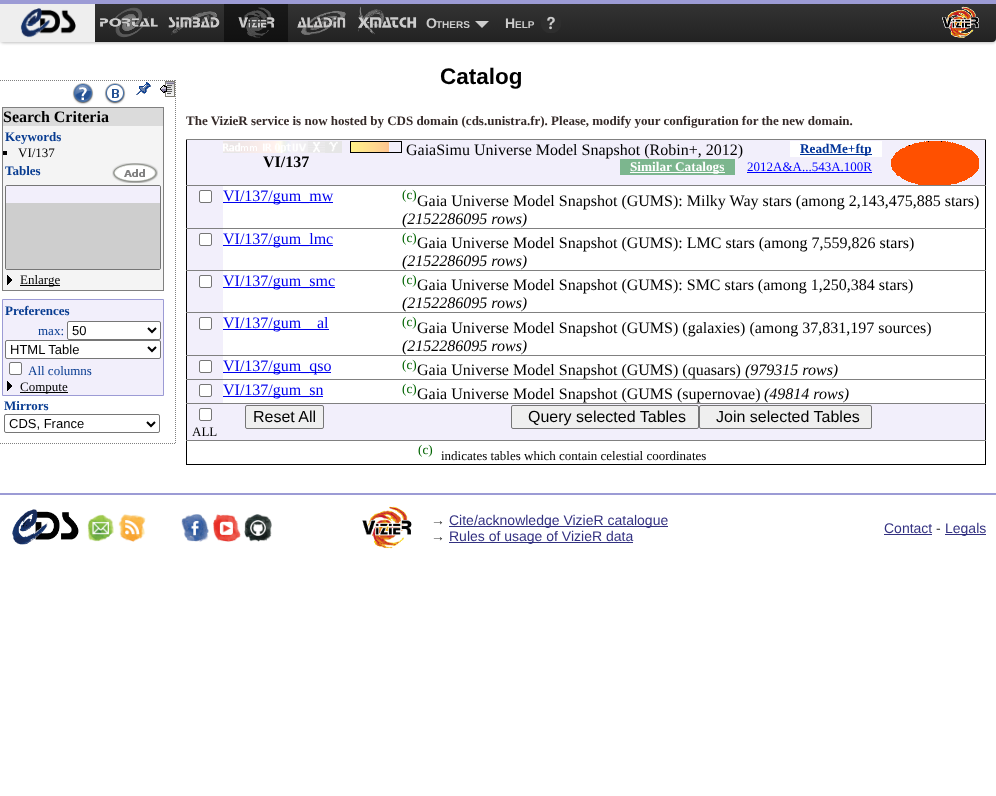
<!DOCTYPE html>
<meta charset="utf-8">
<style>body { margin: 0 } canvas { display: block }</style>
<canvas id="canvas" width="996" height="796"></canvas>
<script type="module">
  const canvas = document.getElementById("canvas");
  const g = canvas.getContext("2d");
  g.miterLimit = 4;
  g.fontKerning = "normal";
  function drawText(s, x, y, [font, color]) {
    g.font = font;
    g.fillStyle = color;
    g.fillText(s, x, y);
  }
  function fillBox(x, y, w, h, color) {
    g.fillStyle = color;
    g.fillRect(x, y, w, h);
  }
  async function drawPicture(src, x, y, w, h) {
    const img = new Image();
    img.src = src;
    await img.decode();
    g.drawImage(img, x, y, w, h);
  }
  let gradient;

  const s1 = ["bold 14px Liberation Sans", "#CCCCCC"];
  const s2 = ["bold 10px Liberation Sans", "#CCCCCC"];
  const s3 = ["bold 22.5px Liberation Sans", "#000000"];
  const s4 = ["bold 16px Liberation Serif", "#000000"];
  const s5 = ["bold 13px Liberation Serif", "#083C91"];
  const s6 = ["13px Liberation Serif", "#000000"];
  const s7 = ["13px Liberation Serif", "#083C91"];
  const s8 = ["13px Liberation Sans", "#000000"];
  const s9 = ["bold 13px Liberation Serif", "#352A28"];
  const s10 = ["16px Liberation Serif", "#000000"];
  const s11 = ["bold 13.25px Liberation Serif", "#003399"];
  const s12 = ["bold 13.25px Liberation Serif", "#FFFFFF"];
  const s13 = ["13px Liberation Serif", "#0000FF"];
  const s14 = ["16px Liberation Serif", "#0000EE"];
  const s15 = ["13.25px Liberation Serif", "#006400"];
  const s16 = ["italic 16px Liberation Serif", "#000000"];
  const s17 = ["16px Liberation Sans", "#000000"];
  const s18 = ["14px Liberation Sans", "#333333"];
  const s19 = ["14px Liberation Sans", "#333181"];

  fillBox(0, 0, 996, 796, "#FFFFFF");
  g.fillStyle = "rgba(0, 0, 0, 0.25)";
  g.filter = "blur(1.5px)";
  g.beginPath();
  g.roundRect(0, 1, 996, 42, 4);
  g.fill();
  g.filter = "none";
  gradient = g.createLinearGradient(498, 4, 498, 42);
  gradient.addColorStop(0, "#333333");
  gradient.addColorStop(1, "#222222");
  g.fillStyle = gradient;
  g.beginPath();
  g.roundRect(0, 4, 996, 38, [0, 0, 4, 4]);
  g.fill();
  g.fillStyle = "rgba(0, 0, 0, 0.1)";
  g.beginPath();
  g.moveTo(0, 37);
  g.bezierCurveTo(0, 40, 1, 42, 4, 42);
  g.lineTo(992, 42);
  g.bezierCurveTo(995, 42, 996, 40, 996, 37);
  g.bezierCurveTo(996, 39, 994, 41, 992, 41);
  g.lineTo(4, 41);
  g.bezierCurveTo(2, 41, 0, 39, 0, 37);
  g.closePath();
  g.fill();
  fillBox(0, 0, 996, 4, "#9C9BD5");
  fillBox(0, 4, 95, 38, "#EEEEEE");
  await drawPicture("pic1.png", 20, 8, 56, 30);
  await drawPicture("pic2.png", 109, 7, 40, 31);
  await drawPicture("pic3.png", 100, 18, 58, 9);
  await drawPicture("pic4.png", 171, 11, 46, 24);
  await drawPicture("pic5.png", 168, 17, 52, 11);
  fillBox(224, 4, 64, 38, "rgba(0, 0, 0, 0.5)");
  await drawPicture("pic6.png", 242, 7, 30, 31);
  await drawPicture("pic7.png", 238, 17, 37, 11);
  await drawPicture("pic8.png", 301, 10, 45, 25);
  await drawPicture("pic9.png", 297, 17, 49, 11);
  await drawPicture("pic10.png", 358, 6, 26, 29);
  await drawPicture("pic11.png", 358, 17, 59, 11);
  drawText("O", 426, 28, s1);
  drawText("THERS", 436, 28, s2);
  g.beginPath();
  g.moveTo(475, 21);
  g.lineTo(489, 21);
  g.lineTo(482, 28);
  g.closePath();
  g.fill();
  drawText("H", 505, 28, s1);
  drawText("ELP", 515, 28, s2);
  await drawPicture("pic12.png", 541, 16, 20, 17);
  await drawPicture("pic13.png", 942, 6, 37, 32);
  drawText("Catalog", 440, 84, s3);
  g.beginPath();
  g.moveTo(0, 80.5);
  g.lineTo(176, 80.5);
  g.strokeStyle = "#808080";
  g.setLineDash([1, 1]);
  g.stroke();
  g.beginPath();
  g.moveTo(175.5, 80);
  g.lineTo(175.5, 444);
  g.stroke();
  g.beginPath();
  g.moveTo(0, 443.5);
  g.lineTo(176, 443.5);
  g.stroke();
  await drawPicture("pic14.png", 72, 83, 22, 22);
  await drawPicture("pic15.png", 104, 83, 22, 22);
  await drawPicture("pic16.png", 136, 82, 15, 13);
  await drawPicture("pic17.png", 160, 81, 15, 16);
  fillBox(3, 126, 160, 164, "#F4F4F4");
  g.setLineDash([]);
  g.strokeRect(2.5, 107.5, 161, 183);
  fillBox(3, 108, 160, 18, "#DBDBDB");
  drawText("Search Criteria", 3, 122, s4);
  drawText("Keywords", 5, 141, s5);
  fillBox(3, 151, 4, 4, "#000000");
  drawText("VI/137", 18, 157, s6);
  drawText("Tables", 5, 175, s5);
  await drawPicture("pic18.png", 112, 163, 46, 20);
  g.beginPath();
  g.roundRect(5.5, 185.5, 155, 84, 1.5);
  g.strokeStyle = "#767676";
  g.stroke();
  g.fillStyle = "#F2EFFB";
  g.beginPath();
  g.roundRect(6, 186, 154, 17, [1, 1, 0, 0]);
  g.fill();
  fillBox(6, 203, 154, 50, "#CECECE");
  g.beginPath();
  g.roundRect(6, 253, 154, 16, [0, 0, 1, 1]);
  g.fill();
  await drawPicture("pic19.png", 7, 275, 5, 10);
  fillBox(20, 285, 40, 1, "#000000");
  drawText("Enlarge", 20, 284, s6);
  g.fillStyle = "#F2EFFB";
  g.beginPath();
  g.rect(2.5, 299.5, 161, 96);
  g.fill();
  g.strokeStyle = "#9C9BD5";
  g.stroke();
  drawText("Preferences", 5, 315, s5);
  drawText("max:", 38, 335, s7);
  g.fillStyle = "#FFFFFF";
  g.beginPath();
  g.roundRect(67.5, 321.5, 93, 18, 1.5);
  g.fill();
  g.strokeStyle = "#767676";
  g.stroke();
  g.beginPath();
  g.moveTo(148, 328);
  g.lineTo(152, 332);
  g.lineTo(156, 328);
  g.strokeStyle = "#000000";
  g.lineWidth = 2;
  g.stroke();
  drawText("50", 72, 335, s8);
  g.fillStyle = "#FFFFFF";
  g.beginPath();
  g.roundRect(5.5, 340.5, 155, 18, 1.5);
  g.fill();
  g.strokeStyle = "#767676";
  g.lineWidth = 1;
  g.stroke();
  g.beginPath();
  g.moveTo(148, 347);
  g.lineTo(152, 351);
  g.lineTo(156, 347);
  g.strokeStyle = "#000000";
  g.lineWidth = 2;
  g.stroke();
  drawText("HTML Table", 10, 354, s8);
  g.fillStyle = "#FFFFFF";
  g.beginPath();
  g.roundRect(9.5, 362.5, 12, 12, 1.5);
  g.fill();
  g.strokeStyle = "#767676";
  g.lineWidth = 1;
  g.stroke();
  drawText("All columns", 28, 375, s7);
  await drawPicture("pic20.png", 7, 381, 5, 10);
  fillBox(20, 392, 48, 1, "#000000");
  drawText("Compute", 20, 391, s6);
  drawText("Mirrors", 4, 410, s5);
  g.beginPath();
  g.roundRect(4.5, 414.5, 155, 18, 1.5);
  g.stroke();
  g.beginPath();
  g.moveTo(147, 422);
  g.lineTo(151, 426);
  g.lineTo(155, 422);
  g.strokeStyle = "#000000";
  g.lineWidth = 2;
  g.stroke();
  drawText("CDS, France", 9, 428, s8);
  drawText("The VizieR service is now hosted by CDS domain (cds.unistra.fr). Please, modify your configuration for the new domain.", 186, 125, s9);
  fillBox(985, 139, 1, 326, "#000000");
  fillBox(186, 464, 800, 1, "#000000");
  fillBox(186, 139, 1, 326, "#000000");
  fillBox(186, 139, 800, 1, "#808080");
  fillBox(406, 140, 579, 45, "#F2EFFB");
  await drawPicture("pic21.png", 891, 141, 88, 44);
  fillBox(187, 140, 215, 45, "#F2EFFB");
  fillBox(402, 140, 4, 46, "#F2EFFB");
  await drawPicture("pic22.png", 223, 141, 119, 12);
  fillBox(223, 141, 17, 12, "rgba(255, 255, 255, 0.9)");
  fillBox(240, 141, 17, 12, "rgba(255, 255, 255, 0.9)");
  fillBox(257, 141, 17, 12, "rgba(255, 255, 255, 0.9)");
  fillBox(274, 141, 17, 12, "rgba(255, 255, 255, 0.9)");
  fillBox(291, 141, 17, 12, "rgba(255, 255, 255, 0.9)");
  fillBox(308, 141, 17, 12, "rgba(255, 255, 255, 0.9)");
  fillBox(325, 141, 17, 12, "rgba(255, 255, 255, 0.9)");
  drawText("VI/137", 263, 167, s4);
  g.lineWidth = 1;
  g.strokeRect(350.5, 141.5, 51, 11);
  await drawPicture("pic23.png", 351, 142, 38, 10);
  drawText("GaiaSimu Universe Model Snapshot (Robin+, 2012)", 406, 155, s10);
  fillBox(790, 141, 92, 16, "#FFFFFF");
  fillBox(800, 154, 72, 1, "#003399");
  drawText("ReadMe+ftp", 800, 153, s11);
  fillBox(620, 159, 115, 16, "#7CB68E");
  fillBox(630, 172, 95, 1, "#FFFFFF");
  drawText("Similar Catalogs", 630, 171, s12);
  drawText("2012A&A...543A.100R", 747, 171, s13);
  fillBox(747, 172, 125, 1, "#0000FF");
  fillBox(187, 186, 36, 42, "#F2EFFB");
  g.fillStyle = "#FFFFFF";
  g.beginPath();
  g.roundRect(199.5, 190.5, 12, 12, 1.5);
  g.fill();
  g.strokeStyle = "#767676";
  g.stroke();
  fillBox(223, 202, 110, 1, "#0000EE");
  drawText("VI/137/gum_mw", 223, 201, s14);
  fillBox(186, 185, 800, 1, "#808080");
  drawText("(c)", 402, 199, s15);
  drawText("Gaia Universe Model Snapshot (GUMS): Milky Way stars (among 2,143,475,885 stars)", 417, 206, s10);
  drawText("(2152286095 rows)", 402, 224, s16);
  fillBox(187, 229, 36, 41, "#F2EFFB");
  g.fillStyle = "#FFFFFF";
  g.beginPath();
  g.roundRect(199.5, 233.5, 12, 12, 1.5);
  g.fill();
  g.stroke();
  fillBox(223, 245, 110, 1, "#0000EE");
  drawText("VI/137/gum_lmc", 223, 244, s14);
  fillBox(186, 228, 800, 1, "#808080");
  drawText("(c)", 402, 242, s15);
  drawText("Gaia Universe Model Snapshot (GUMS): LMC stars (among 7,559,826 stars)", 417, 248, s10);
  drawText("(2152286095 rows)", 402, 266, s16);
  fillBox(187, 271, 36, 41, "#F2EFFB");
  g.fillStyle = "#FFFFFF";
  g.beginPath();
  g.roundRect(199.5, 275.5, 12, 12, 1.5);
  g.fill();
  g.stroke();
  fillBox(223, 287, 112, 1, "#0000EE");
  drawText("VI/137/gum_smc", 223, 286, s14);
  fillBox(186, 270, 800, 1, "#808080");
  drawText("(c)", 402, 284, s15);
  drawText("Gaia Universe Model Snapshot (GUMS): SMC stars (among 1,250,384 stars)", 417, 290, s10);
  drawText("(2152286095 rows)", 402, 308, s16);
  fillBox(187, 313, 36, 42, "#F2EFFB");
  g.fillStyle = "#FFFFFF";
  g.beginPath();
  g.roundRect(199.5, 317.5, 12, 12, 1.5);
  g.fill();
  g.stroke();
  fillBox(223, 329, 106, 1, "#0000EE");
  drawText("VI/137/gum", 223, 328, s14);
  drawText("al", 317, 328, s14);
  fillBox(186, 312, 800, 1, "#808080");
  drawText("(c)", 402, 326, s15);
  drawText("Gaia Universe Model Snapshot (GUMS) (galaxies) (among 37,831,197 sources)", 417, 333, s10);
  drawText("(2152286095 rows)", 402, 351, s16);
  fillBox(187, 356, 36, 23, "#F2EFFB");
  g.fillStyle = "#FFFFFF";
  g.beginPath();
  g.roundRect(199.5, 360.5, 12, 12, 1.5);
  g.fill();
  g.stroke();
  fillBox(223, 372, 108, 1, "#0000EE");
  drawText("VI/137/gum_qso", 223, 371, s14);
  fillBox(186, 355, 800, 1, "#808080");
  drawText("(c)", 402, 369, s15);
  drawText("Gaia Universe Model Snapshot (GUMS) (quasars)", 417, 375, s10);
  drawText("(979315 rows)", 745, 375, s16);
  fillBox(187, 380, 36, 23, "#F2EFFB");
  g.fillStyle = "#FFFFFF";
  g.beginPath();
  g.roundRect(199.5, 384.5, 12, 12, 1.5);
  g.fill();
  g.stroke();
  fillBox(223, 396, 100, 1, "#0000EE");
  drawText("VI/137/gum_sn", 223, 395, s14);
  fillBox(186, 379, 800, 1, "#808080");
  drawText("(c)", 402, 393, s15);
  drawText("Gaia Universe Model Snapshot (GUMS (supernovae)", 417, 399, s10);
  drawText("(49814 rows)", 764, 399, s16);
  fillBox(187, 404, 215, 36, "#F2EFFB");
  g.fillStyle = "#EFEFEF";
  g.beginPath();
  g.roundRect(245.5, 405.5, 78, 23, 1.5);
  g.fill();
  g.stroke();
  drawText("Reset All", 253, 422, s17);
  fillBox(402, 404, 4, 37, "#F2EFFB");
  fillBox(406, 404, 579, 36, "#F2EFFB");
  fillBox(186, 403, 800, 1, "#808080");
  g.fillStyle = "#EFEFEF";
  g.beginPath();
  g.roundRect(511.5, 405.5, 187, 23, 1.5);
  g.fill();
  g.stroke();
  drawText("Query selected Tables", 528, 422, s17);
  g.fillStyle = "#EFEFEF";
  g.beginPath();
  g.roundRect(699.5, 405.5, 172, 23, 1.5);
  g.fill();
  g.stroke();
  drawText("Join selected Tables", 716, 422, s17);
  g.fillStyle = "#FFFFFF";
  g.beginPath();
  g.roundRect(199.5, 408.5, 12, 12, 1.5);
  g.fill();
  g.stroke();
  drawText("ALL", 192, 436, s6);
  fillBox(186, 440, 800, 1, "#808080");
  drawText("(c)", 418, 454, s15);
  drawText("indicates tables which contain celestial coordinates", 441, 460, s6);
  fillBox(0, 493, 996, 2, "#9C9BD5");
  await drawPicture("pic24.png", 12, 509, 67, 36);
  await drawPicture("pic25.png", 87, 514, 27, 28);
  await drawPicture("pic26.png", 118, 514, 28, 28);
  await drawPicture("pic27.png", 181, 514, 28, 28);
  await drawPicture("pic28.png", 213, 514, 28, 28);
  await drawPicture("pic29.png", 244, 514, 28, 28);
  await drawPicture("pic30.png", 362, 506, 50, 43);
  drawText("→", 431, 525, s18);
  fillBox(449, 526, 219, 1, "#333181");
  drawText("Cite/acknowledge VizieR catalogue", 449, 525, s19);
  drawText("→", 431, 541, s18);
  fillBox(449, 542, 184, 1, "#333181");
  drawText("Rules of usage of VizieR data", 449, 541, s19);
  drawText("Contact", 884, 533, s19);
  fillBox(884, 534, 48, 1, "#333181");
  drawText("-", 936, 533, s18);
  fillBox(945, 534, 41, 1, "#333181");
  drawText("Legals", 945, 533, s19);
</script>
